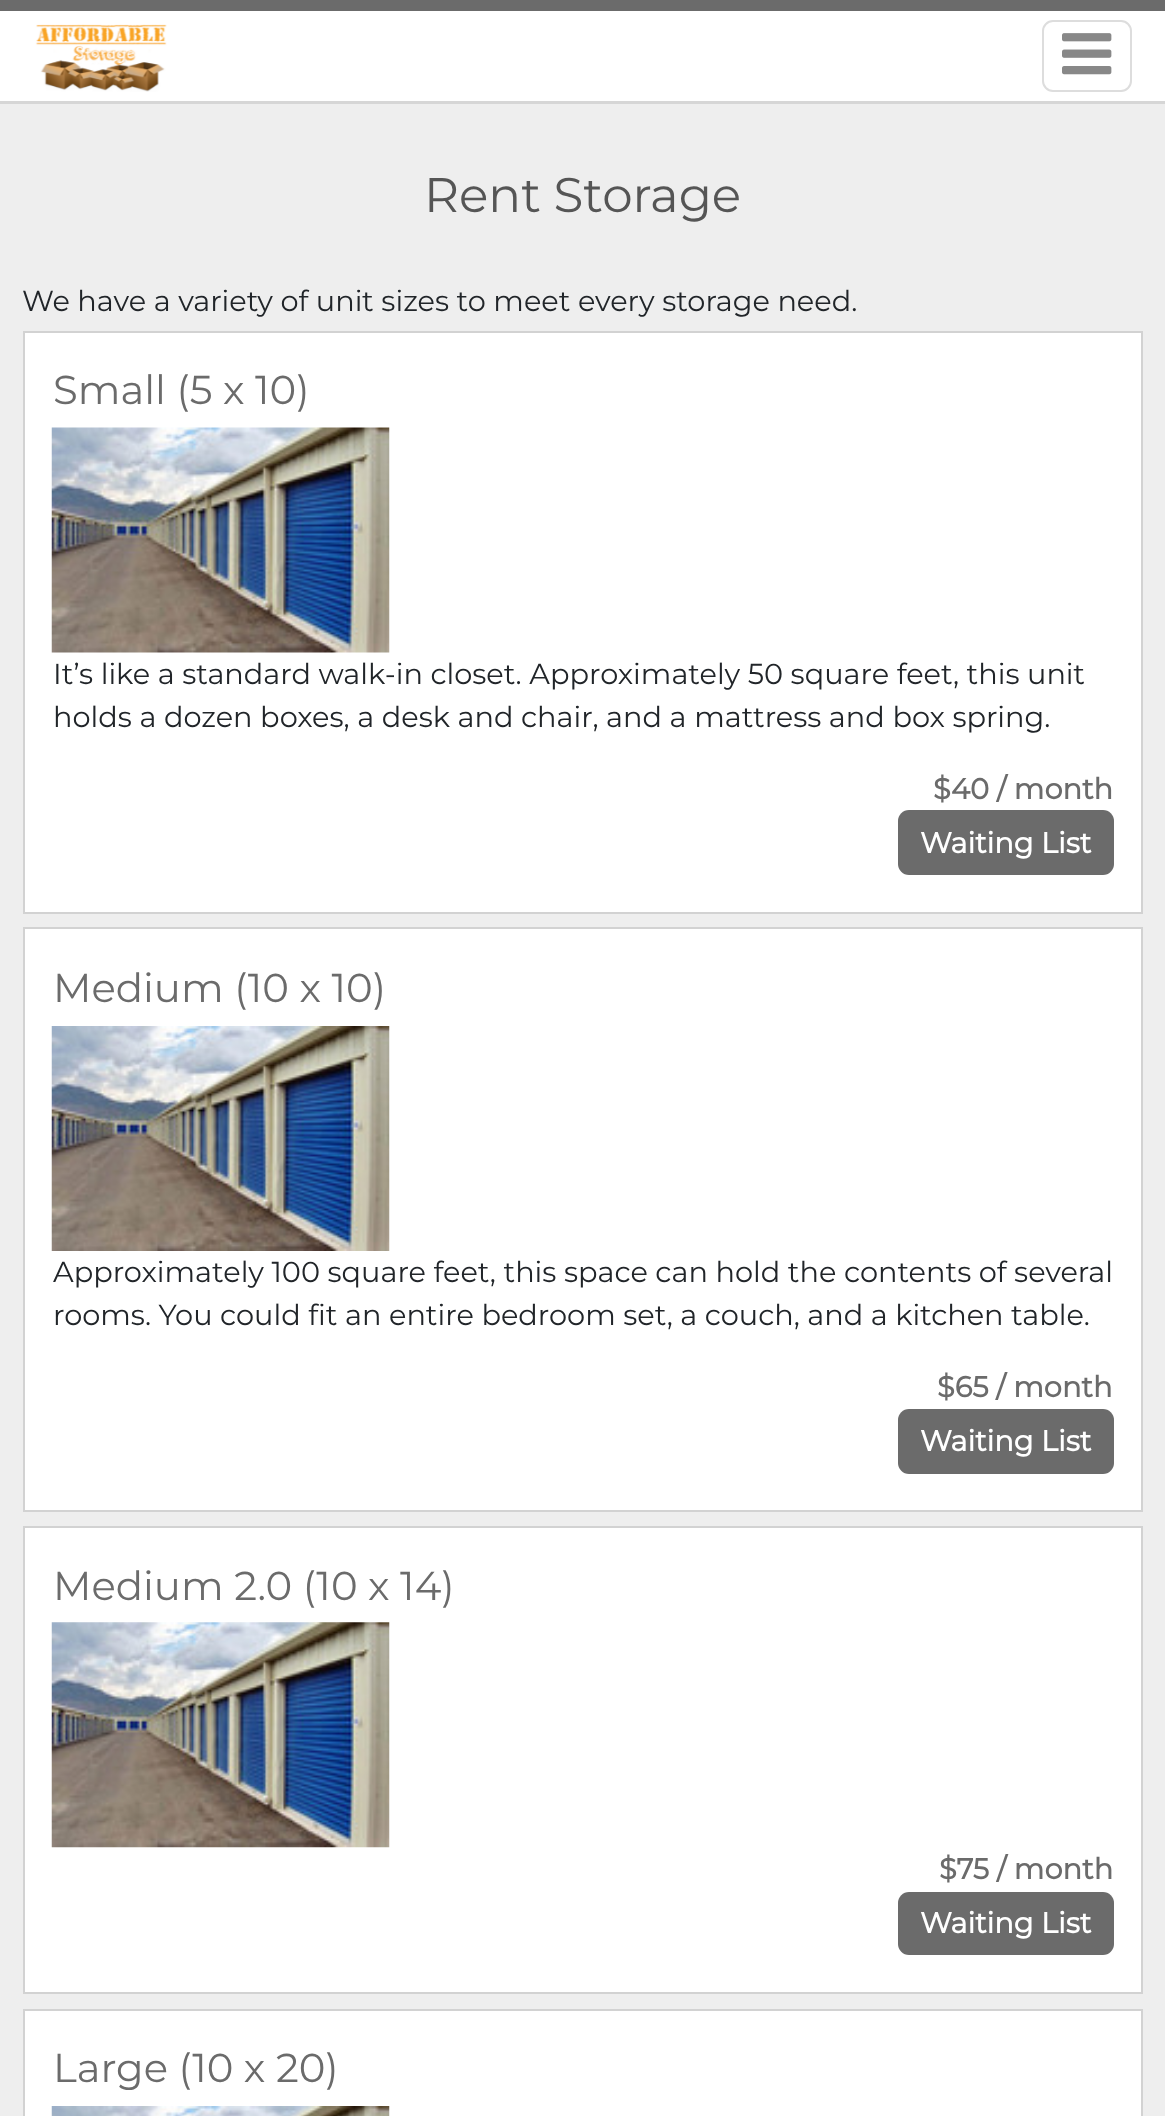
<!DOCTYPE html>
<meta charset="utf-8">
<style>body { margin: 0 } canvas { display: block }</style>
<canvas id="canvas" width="1165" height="2116"></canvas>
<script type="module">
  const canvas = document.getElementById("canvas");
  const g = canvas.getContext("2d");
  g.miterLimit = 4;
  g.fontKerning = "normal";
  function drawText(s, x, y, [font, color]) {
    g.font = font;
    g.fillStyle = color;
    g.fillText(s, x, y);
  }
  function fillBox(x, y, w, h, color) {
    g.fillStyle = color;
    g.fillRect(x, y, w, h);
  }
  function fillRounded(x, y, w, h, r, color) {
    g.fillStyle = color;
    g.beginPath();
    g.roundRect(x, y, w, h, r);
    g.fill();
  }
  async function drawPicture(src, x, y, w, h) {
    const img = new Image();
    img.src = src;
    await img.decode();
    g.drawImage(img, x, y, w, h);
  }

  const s1 = ["100 48.5px Montserrat", "#555555"];
  const s2 = ["100 28.8px Montserrat", "#212529"];
  const s3 = ["100 40.25px Montserrat", "#6B6B6B"];
  const s4 = ["bold 28.8px Montserrat", "#6B6B6B"];
  const s5 = ["bold 28.8px Montserrat", "#FFFFFF"];

  fillBox(0, 0, 1165, 2116, "#EEEEEE");
  g.fillStyle = "#D6D6D6";
  g.beginPath();
  g.moveTo(0, 101);
  g.lineTo(0, 104);
  g.lineTo(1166, 104);
  g.lineTo(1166, 2);
  g.lineTo(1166, 101);
  g.closePath();
  g.fill();
  fillBox(0, 11, 1165, 90, "#FFFFFF");
  fillBox(0, 0, 1165, 11, "#6B6B6B");
  await drawPicture("pic1.png", 35, 24, 132, 68);
  g.beginPath();
  g.roundRect(1043, 21, 88, 70, 10);
  g.strokeStyle = "#DDDDDD";
  g.lineWidth = 2;
  g.stroke();
  await drawPicture("pic2.png", 1062, 33, 50, 42);
  drawText("Rent Storage", 424, 212, s1);
  drawText("We have a variety of unit sizes to meet every storage need.", 22, 311, s2);
  g.fillStyle = "#FFFFFF";
  g.beginPath();
  g.rect(24, 332, 1118, 581);
  g.fill();
  g.strokeStyle = "#D2D2D2";
  g.stroke();
  drawText("Small (5 x 10)", 53, 404, s3);
  await drawPicture("pic3.png", 51, 427, 339, 226);
  drawText("It’s like a standard walk-in closet. Approximately 50 square feet, this unit", 53, 684, s2);
  drawText("holds a dozen boxes, a desk and chair, and a mattress and box spring.", 53, 727, s2);
  drawText("$40 / month", 933, 799, s4);
  fillRounded(898, 810, 216, 65, 11, "#6B6B6B");
  drawText("Waiting List", 920, 853, s5);
  g.beginPath();
  g.rect(24, 928, 1118, 583);
  g.fill();
  g.stroke();
  drawText("Medium (10 x 10)", 53, 1002, s3);
  await drawPicture("pic4.png", 51, 1026, 339, 225);
  drawText("Approximately 100 square feet, this space can hold the contents of several", 53, 1282, s2);
  drawText("rooms. You could fit an entire bedroom set, a couch, and a kitchen table.", 53, 1325, s2);
  drawText("$65 / month", 937, 1397, s4);
  fillRounded(898, 1409, 216, 65, 11, "#6B6B6B");
  drawText("Waiting List", 920, 1451, s5);
  g.beginPath();
  g.rect(24, 1527, 1118, 466);
  g.fill();
  g.stroke();
  drawText("Medium 2.0 (10 x 14)", 53, 1600, s3);
  await drawPicture("pic5.png", 51, 1622, 339, 226);
  drawText("$75 / month", 939, 1879, s4);
  fillRounded(898, 1892, 216, 63, 11, "#6B6B6B");
  drawText("Waiting List", 920, 1933, s5);
  g.beginPath();
  g.rect(24, 2010, 1118, 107);
  g.fill();
  g.stroke();
  drawText("Large (10 x 20)", 53, 2082, s3);
  await drawPicture("pic6.png", 51, 2106, 339, 10);
</script>
